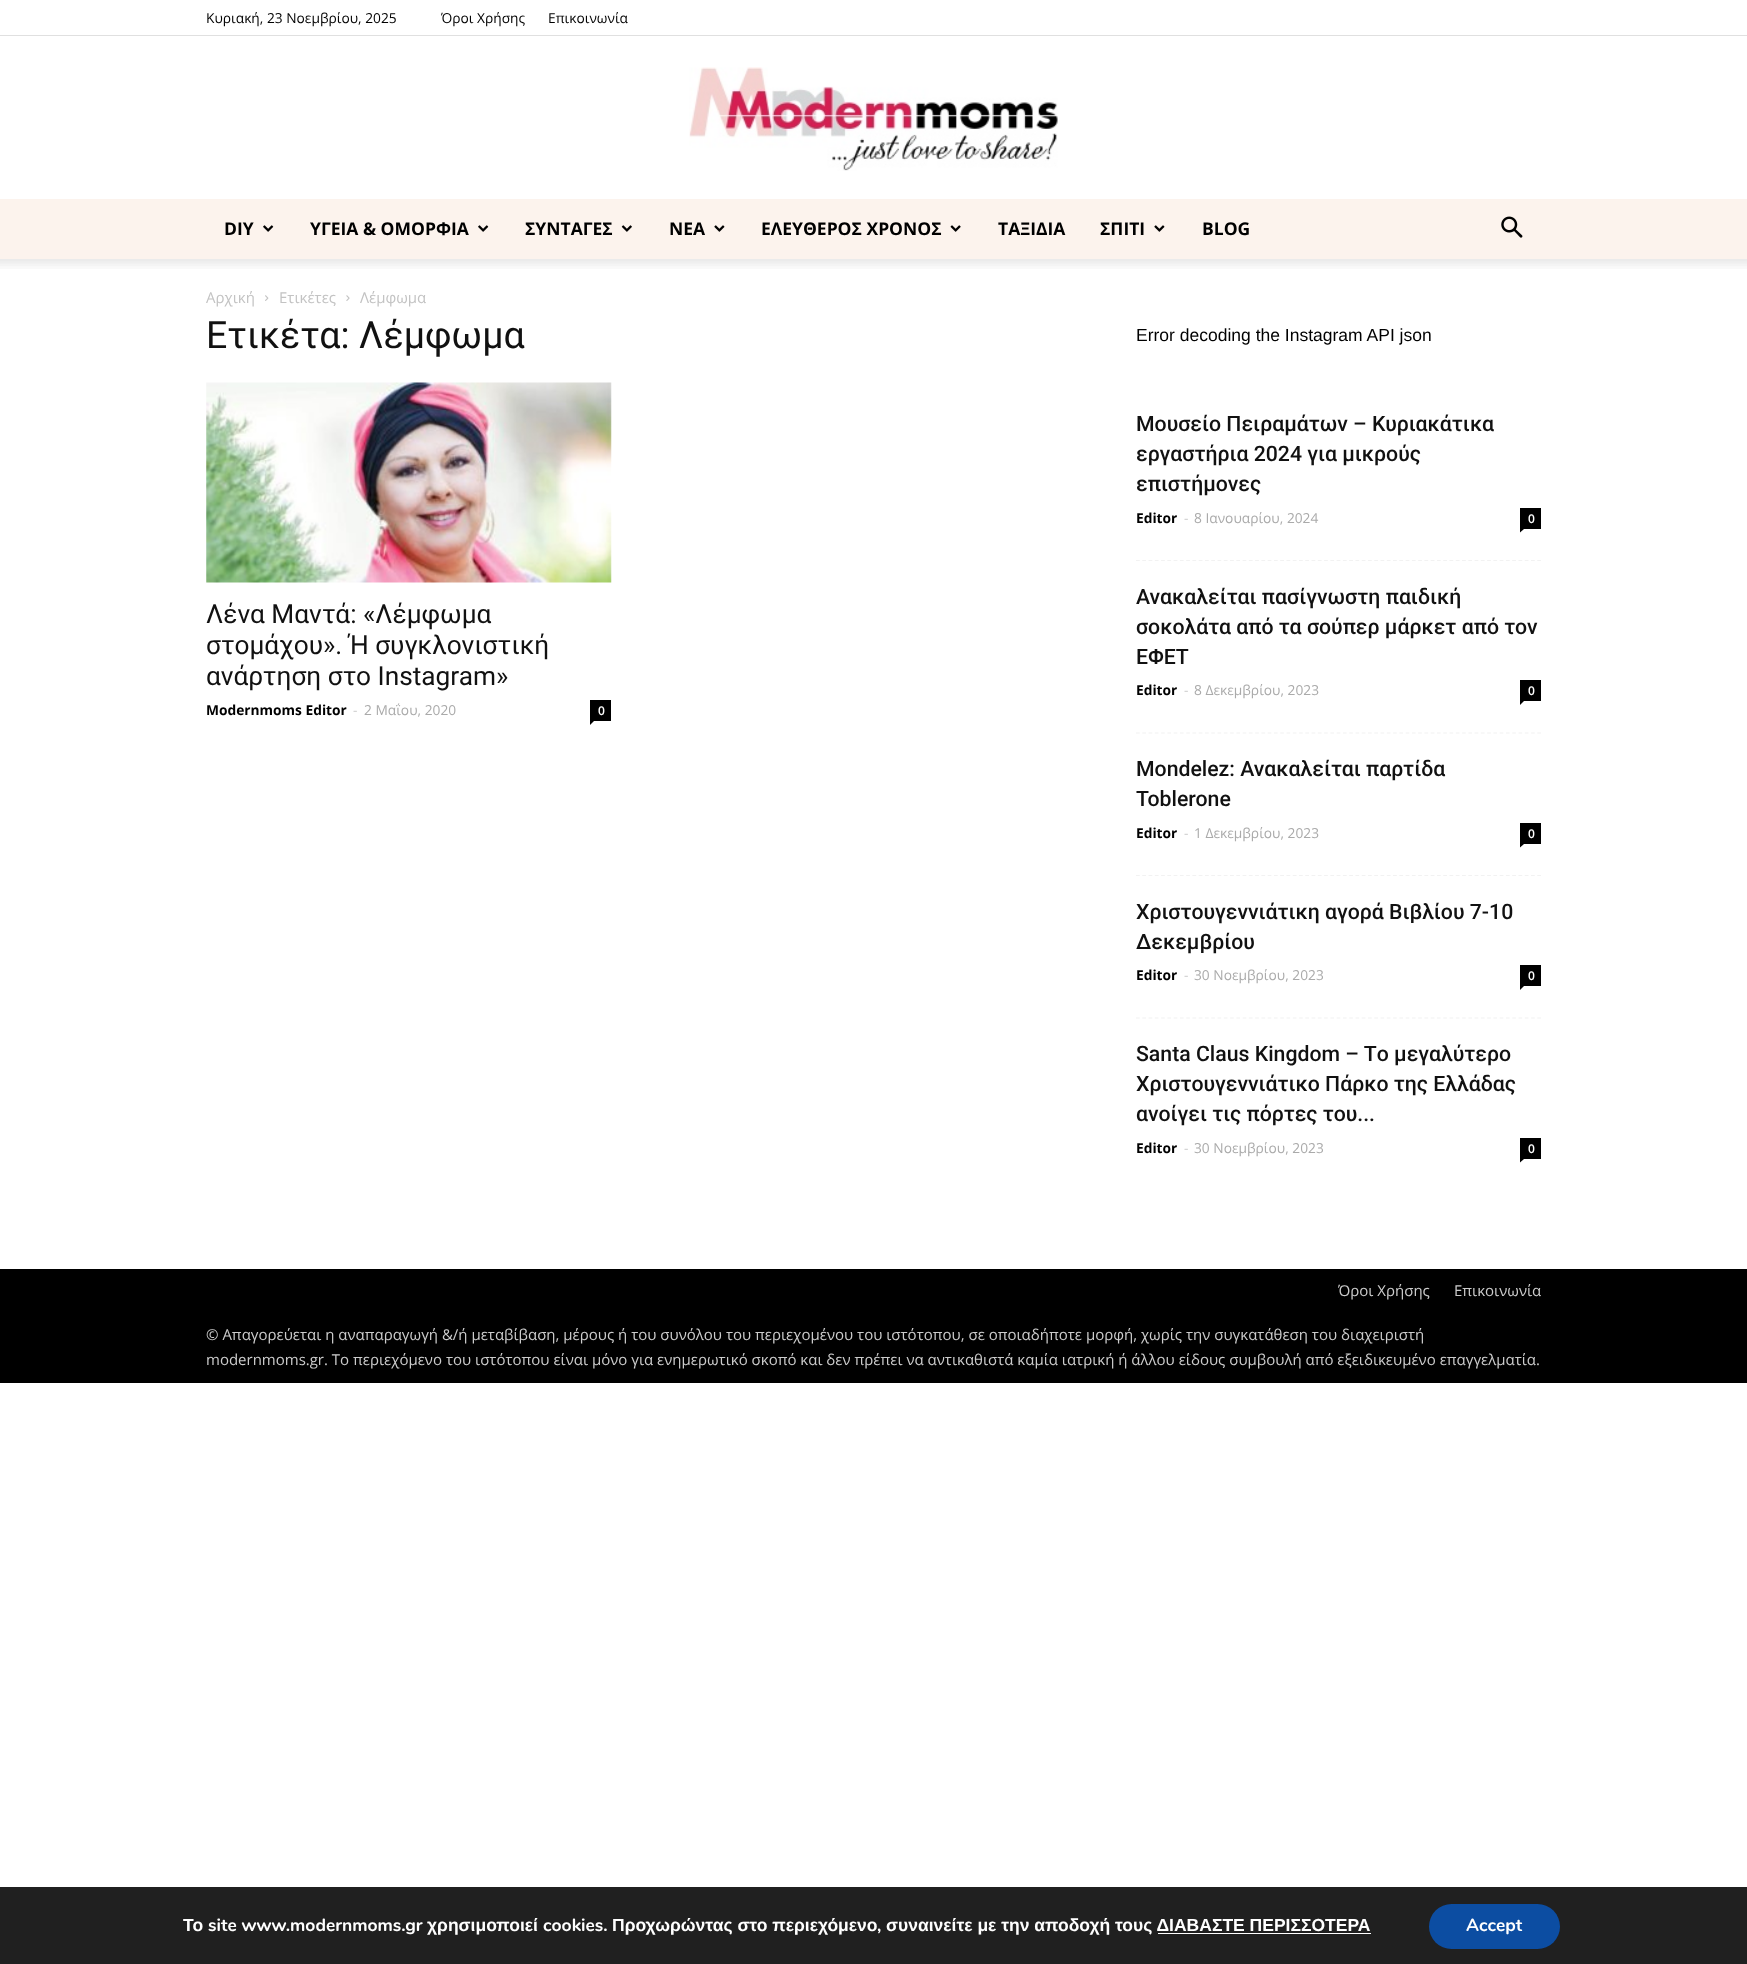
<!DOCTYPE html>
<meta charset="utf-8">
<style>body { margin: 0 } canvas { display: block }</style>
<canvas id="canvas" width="1747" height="1964"></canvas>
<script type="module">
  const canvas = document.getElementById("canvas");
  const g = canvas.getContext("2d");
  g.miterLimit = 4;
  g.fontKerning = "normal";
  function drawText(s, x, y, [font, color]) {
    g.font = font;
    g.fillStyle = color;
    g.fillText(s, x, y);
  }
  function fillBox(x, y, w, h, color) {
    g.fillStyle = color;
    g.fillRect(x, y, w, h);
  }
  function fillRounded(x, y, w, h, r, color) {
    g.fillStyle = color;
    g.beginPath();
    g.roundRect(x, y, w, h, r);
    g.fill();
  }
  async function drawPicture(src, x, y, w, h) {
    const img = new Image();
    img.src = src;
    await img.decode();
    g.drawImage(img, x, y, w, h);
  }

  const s1 = ["13.75px Open Sans", "#000000"];
  const s2 = ["bold 17.5px Open Sans", "#000000"];
  const s3 = ["15px Open Sans", "#C3C3C3"];
  const s4 = ["37.5px Roboto", "#111111"];
  const s5 = ["26.25px Roboto", "#111111"];
  const s6 = ["bold 13.75px Open Sans", "#000000"];
  const s7 = ["13.75px Open Sans", "#CCCCCC"];
  const s8 = ["13.75px Open Sans", "#AAAAAA"];
  const s9 = ["600 12px Open Sans", "#FFFFFF"];
  const s10 = ["17.5px Liberation Sans", "#000000"];
  const s11 = ["500 21.25px Roboto", "#111111"];
  const s12 = ["15px Open Sans", "#CCCCCC"];
  const s13 = ["bold 17.5px Liberation Sans", "#FFFFFF"];
  const s14 = ["bold 17.5px Nunito", "#FFFFFF"];

  fillBox(0, 0, 1747, 1964, "#FFFFFF");
  fillBox(0, 35, 1747, 1, "#E0E0E0");
  drawText("Κυριακή, 23 Νοεμβρίου, 2025", 206, 23, s1);
  drawText("Όροι Χρήσης", 441, 23, s1);
  drawText("Επικοινωνία", 548, 23, s1);
  await drawPicture("pic1.png", 689, 67, 369, 104);
  fillBox(0, 199, 1747, 60, "#FCF3ED");
  drawText("DIY", 224, 235, s2);
  await drawPicture("pic2.png", 263, 225, 11, 7);
  drawText("ΥΓΕΙΑ & ΟΜΟΡΦΙΑ", 310, 235, s2);
  await drawPicture("pic2.png", 478, 225, 11, 7);
  drawText("ΣΥΝΤΑΓΕΣ", 525, 235, s2);
  await drawPicture("pic3.png", 621, 225, 11, 7);
  drawText("ΝΕΑ", 669, 235, s2);
  await drawPicture("pic4.png", 714, 225, 11, 7);
  drawText("ΕΛΕΥΘΕΡΟΣ ΧΡΟΝΟΣ", 761, 235, s2);
  await drawPicture("pic5.png", 950, 225, 11, 7);
  drawText("ΤΑΞΙΔΙΑ", 998, 235, s2);
  drawText("ΣΠΙΤΙ", 1100, 235, s2);
  await drawPicture("pic4.png", 1154, 225, 11, 7);
  drawText("BLOG", 1202, 235, s2);
  await drawPicture("pic6.png", 1501, 216, 22, 22);
  await drawPicture("pic7.png", 0, 259, 1747, 10);
  drawText("Αρχική", 206, 303, s3);
  await drawPicture("pic8.png", 265, 295, 4, 6);
  drawText("Ετικέτες", 279, 303, s3);
  await drawPicture("pic9.png", 346, 295, 4, 6);
  drawText("Λέμφωμα", 360, 303, s3);
  drawText("Ετικέτα: Λέμφωμα", 206, 348, s4);
  await drawPicture("pic10.png", 206, 382, 406, 201);
  drawText("Λένα Μαντά: «Λέμφωμα", 206, 623, s5);
  drawText("στομάχου». Ή συγκλονιστική", 206, 654, s5);
  drawText("ανάρτηση στο Instagram»", 206, 685, s5);
  drawText("Modernmoms Editor", 206, 715, s6);
  drawText("-", 353, 715, s7);
  drawText("2 Μαΐου, 2020", 364, 715, s8);
  fillBox(590, 700, 21, 21, "#000000");
  drawText("0", 598, 715, s9);
  g.fillStyle = "#000000";
  g.beginPath();
  g.moveTo(590, 721);
  g.lineTo(594, 721);
  g.lineTo(590, 725);
  g.closePath();
  g.fill();
  drawText("Error decoding the Instagram API json", 1136, 341, s10);
  g.beginPath();
  g.moveTo(1136, 560.5);
  g.lineTo(1541, 560.5);
  g.strokeStyle = "#F2F2F2";
  g.lineWidth = 1.2;
  g.setLineDash([3.75, 2.52]);
  g.stroke();
  drawText("Μουσείο Πειραμάτων – Κυριακάτικα", 1136, 431, s11);
  drawText("εργαστήρια 2024 για μικρούς", 1136, 461, s11);
  drawText("επιστήμονες", 1136, 491, s11);
  drawText("Editor", 1136, 523, s6);
  drawText("-", 1184, 523, s7);
  drawText("8 Ιανουαρίου, 2024", 1194, 523, s8);
  fillBox(1520, 508, 21, 21, "#000000");
  drawText("0", 1528, 523, s9);
  g.fillStyle = "#000000";
  g.beginPath();
  g.moveTo(1520, 529);
  g.lineTo(1524, 529);
  g.lineTo(1520, 532.5);
  g.closePath();
  g.fill();
  g.beginPath();
  g.moveTo(1136, 733);
  g.lineTo(1541, 733);
  g.stroke();
  drawText("Ανακαλείται πασίγνωστη παιδική", 1136, 604, s11);
  drawText("σοκολάτα από τα σούπερ μάρκετ από τον", 1136, 634, s11);
  drawText("ΕΦΕΤ", 1136, 664, s11);
  drawText("Editor", 1136, 695, s6);
  drawText("-", 1184, 695, s7);
  drawText("8 Δεκεμβρίου, 2023", 1194, 695, s8);
  fillBox(1520, 680, 21, 21, "#000000");
  drawText("0", 1528, 695, s9);
  g.fillStyle = "#000000";
  g.beginPath();
  g.moveTo(1520, 701);
  g.lineTo(1524, 701);
  g.lineTo(1520, 705);
  g.closePath();
  g.fill();
  g.beginPath();
  g.moveTo(1136, 875.5);
  g.lineTo(1541, 875.5);
  g.stroke();
  drawText("Mondelez: Ανακαλείται παρτίδα", 1136, 776, s11);
  drawText("Toblerone", 1136, 806, s11);
  drawText("Editor", 1136, 838, s6);
  drawText("-", 1184, 838, s7);
  drawText("1 Δεκεμβρίου, 2023", 1194, 838, s8);
  fillBox(1520, 823, 21, 21, "#000000");
  drawText("0", 1528, 838, s9);
  g.fillStyle = "#000000";
  g.beginPath();
  g.moveTo(1520, 844);
  g.lineTo(1524, 844);
  g.lineTo(1520, 847.5);
  g.closePath();
  g.fill();
  g.beginPath();
  g.moveTo(1136, 1018);
  g.lineTo(1541, 1018);
  g.stroke();
  drawText("Xριστουγεννιάτικη αγορά Βιβλίου 7-10", 1136, 919, s11);
  drawText("Δεκεμβρίου", 1136, 949, s11);
  drawText("Editor", 1136, 980, s6);
  drawText("-", 1184, 980, s7);
  drawText("30 Νοεμβρίου, 2023", 1194, 980, s8);
  fillBox(1520, 965, 21, 21, "#000000");
  drawText("0", 1528, 980, s9);
  g.fillStyle = "#000000";
  g.beginPath();
  g.moveTo(1520, 986);
  g.lineTo(1524, 986);
  g.lineTo(1520, 990);
  g.closePath();
  g.fill();
  drawText("Santa Claus Kingdom – Tο μεγαλύτερο", 1136, 1061, s11);
  drawText("Χριστουγεννιάτικο Πάρκο της Ελλάδας", 1136, 1091, s11);
  drawText("ανοίγει τις πόρτες του...", 1136, 1121, s11);
  drawText("Editor", 1136, 1153, s6);
  drawText("-", 1184, 1153, s7);
  drawText("30 Νοεμβρίου, 2023", 1194, 1153, s8);
  fillBox(1520, 1138, 21, 21, "#000000");
  drawText("0", 1528, 1153, s9);
  g.fillStyle = "#000000";
  g.beginPath();
  g.moveTo(1520, 1159);
  g.lineTo(1524, 1159);
  g.lineTo(1520, 1162.5);
  g.closePath();
  g.fill();
  fillBox(0, 1269, 1747, 114, "#000000");
  drawText("Όροι Χρήσης", 1338, 1296, s12);
  drawText("Επικοινωνία", 1454, 1296, s12);
  drawText("© Απαγορεύεται η αναπαραγωγή &/ή μεταβίβαση, μέρους ή του συνόλου του περιεχομένου του ιστότοπου, σε οποιαδήποτε μορφή, χωρίς την συγκατάθεση του διαχειριστή", 206, 1340, s12);
  drawText("modernmoms.gr. Το περιεχόμενο του ιστότοπου είναι μόνο για ενημερωτικό σκοπό και δεν πρέπει να αντικαθιστά καμία ιατρική ή άλλου είδους συμβουλή από εξειδικευμένο επαγγελματία.", 206, 1365, s12);
  fillBox(0, 1887, 1747, 77, "#202020");
  drawText("Το", 183, 1931, s13);
  drawText("site www.modernmoms.gr", 208, 1931, s14);
  drawText("χρησιμοποιεί", 427, 1931, s13);
  drawText("cookies.", 543, 1931, s14);
  drawText("Προχωρώντας στο περιεχόμενο", 612, 1931, s13);
  drawText(",", 877, 1931, s14);
  drawText("συναινείτε με την αποδοχή τους ΔΙΑΒΑΣΤΕ ΠΕΡΙΣΣΟΤΕΡΑ", 886, 1931, s13);
  fillBox(1158, 1933, 213, 1, "#FFFFFF");
  fillRounded(1429, 1904, 131, 45, 22.5, "#0C4DA2");
  drawText("Accept", 1466, 1931, s14);
</script>
